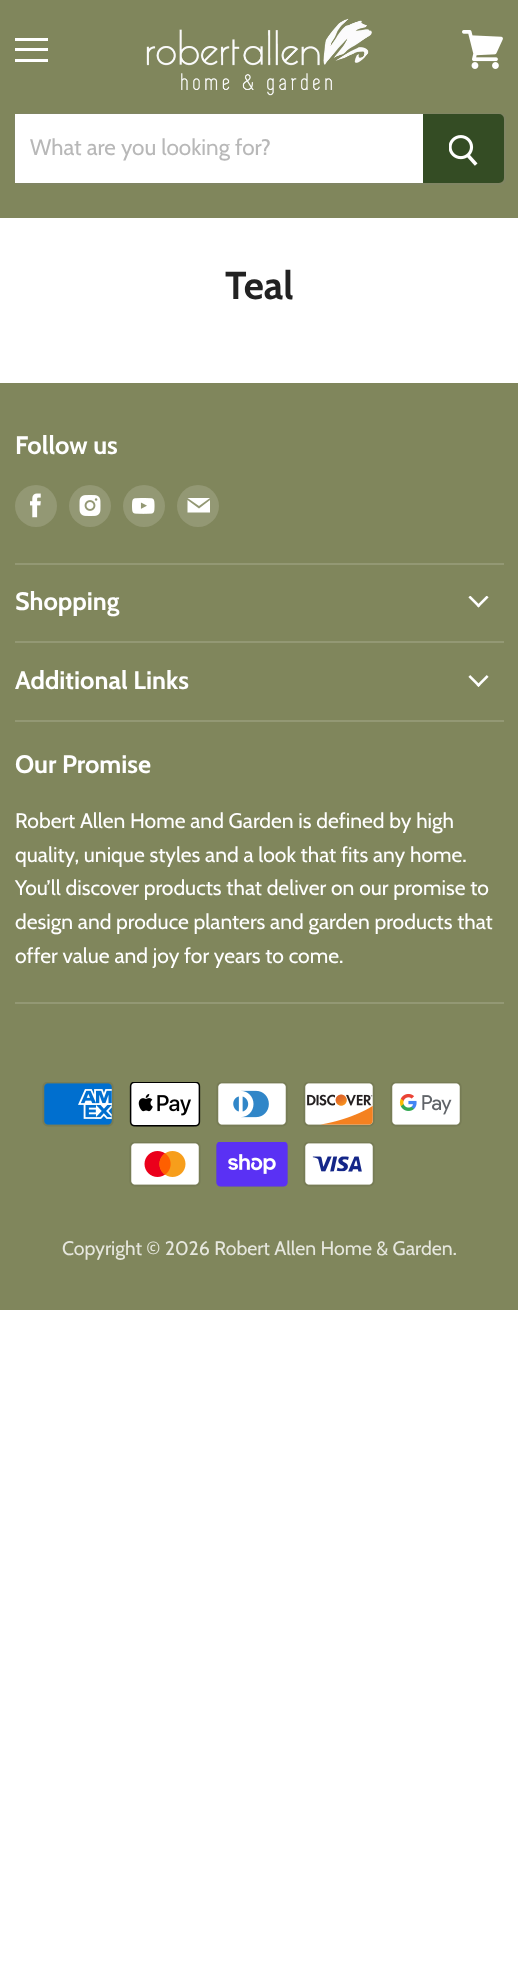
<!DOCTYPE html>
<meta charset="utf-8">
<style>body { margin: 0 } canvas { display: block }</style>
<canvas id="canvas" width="518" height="1972"></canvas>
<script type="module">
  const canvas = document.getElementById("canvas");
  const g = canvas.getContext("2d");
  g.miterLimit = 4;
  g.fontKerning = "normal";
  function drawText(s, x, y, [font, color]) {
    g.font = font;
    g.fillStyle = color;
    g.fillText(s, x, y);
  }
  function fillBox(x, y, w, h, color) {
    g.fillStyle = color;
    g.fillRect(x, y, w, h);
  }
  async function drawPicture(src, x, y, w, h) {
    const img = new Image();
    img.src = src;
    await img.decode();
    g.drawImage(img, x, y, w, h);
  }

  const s1 = ["22.5px Cabin", "#B8B8B8"];
  const s2 = ["bold 39px Cabin", "#222222"];
  const s3 = ["bold 25.25px Cabin", "#FFFFFF"];
  const s4 = ["21.1px Cabin", "#FFFFFF"];
  const s5 = ["19.5px Cabin", "#E6E7DE"];

  fillBox(0, 0, 518, 1972, "#FFFFFF");
  fillBox(0, 0, 518, 218, "#80865C");
  fillBox(15, 38, 33, 3, "#FFFFFF");
  fillBox(15, 48, 33, 3, "#FFFFFF");
  fillBox(15, 59, 33, 3, "#FFFFFF");
  await drawPicture("pic1.png", 462, 30, 41, 39);
  await drawPicture("pic2.png", 146, 18, 226, 78);
  g.beginPath();
  g.roundRect(15, 114, 490, 70, 5);
  g.strokeStyle = "rgba(128, 128, 128, 0.2)";
  g.lineWidth = 2;
  g.stroke();
  fillBox(15, 114, 408, 69, "#FFFFFF");
  drawText("What are you looking for?", 30, 155, s1);
  g.fillStyle = "#344C24";
  g.beginPath();
  g.roundRect(424, 115, 79, 67, [0, 4, 4, 0]);
  g.fill();
  g.strokeStyle = "#344C24";
  g.stroke();
  await drawPicture("pic3.png", 449, 135, 29, 31);
  drawText("Teal", 225, 299, s2);
  fillBox(0, 383, 518, 927, "#80865C");
  fillBox(15, 563, 489, 2, "#939874");
  drawText("Follow us", 15, 454, s3);
  g.fillStyle = "#939874";
  g.beginPath();
  g.arc(36, 506, 21, 0, Math.PI * 2);
  g.fill();
  await drawPicture("pic4.png", 30, 493, 11, 25);
  g.beginPath();
  g.arc(90, 506, 21, 0, Math.PI * 2);
  g.fill();
  await drawPicture("pic5.png", 79, 495, 22, 21);
  g.beginPath();
  g.arc(144, 506, 21, 0, Math.PI * 2);
  g.fill();
  await drawPicture("pic6.png", 132, 498, 23, 16);
  g.beginPath();
  g.arc(198, 506, 21, 0, Math.PI * 2);
  g.fill();
  g.fillStyle = "#FFFFFF";
  g.beginPath();
  g.moveTo(210, 498);
  g.lineTo(187.5, 498);
  g.lineTo(199, 506);
  g.closePath();
  g.moveTo(199, 508.5);
  g.lineTo(187.5, 500);
  g.lineTo(187.5, 512.5);
  g.lineTo(210, 512.5);
  g.lineTo(210, 500);
  g.closePath();
  g.fill("evenodd");
  fillBox(15, 641, 489, 2, "#939874");
  drawText("Shopping", 15, 610, s3);
  await drawPicture("pic7.png", 468, 596, 21, 12);
  fillBox(15, 720, 489, 2, "#939874");
  drawText("Additional Links", 15, 689, s3);
  await drawPicture("pic8.png", 468, 675, 21, 12);
  fillBox(15, 1002, 489, 2, "#939874");
  drawText("Our Promise", 15, 773, s3);
  drawText("Robert Allen Home and Garden is defined by high", 15, 828, s4);
  drawText("quality, unique styles and a look that fits any home.", 15, 862, s4);
  drawText("You’ll discover products that deliver on our promise to", 15, 895, s4);
  drawText("design and produce planters and garden products that", 15, 929, s4);
  drawText("offer value and joy for years to come.", 15, 963, s4);
  await drawPicture("pic9.png", 42, 1082, 72, 45);
  await drawPicture("pic10.png", 129, 1082, 72, 45);
  await drawPicture("pic11.png", 216, 1082, 72, 45);
  await drawPicture("pic12.png", 303, 1082, 72, 45);
  await drawPicture("pic13.png", 390, 1082, 72, 45);
  await drawPicture("pic14.png", 129, 1142, 72, 45);
  await drawPicture("pic15.png", 216, 1142, 72, 45);
  await drawPicture("pic16.png", 303, 1142, 72, 45);
  drawText("Copyright © 2026 Robert Allen Home & Garden.", 62, 1255, s5);
</script>
